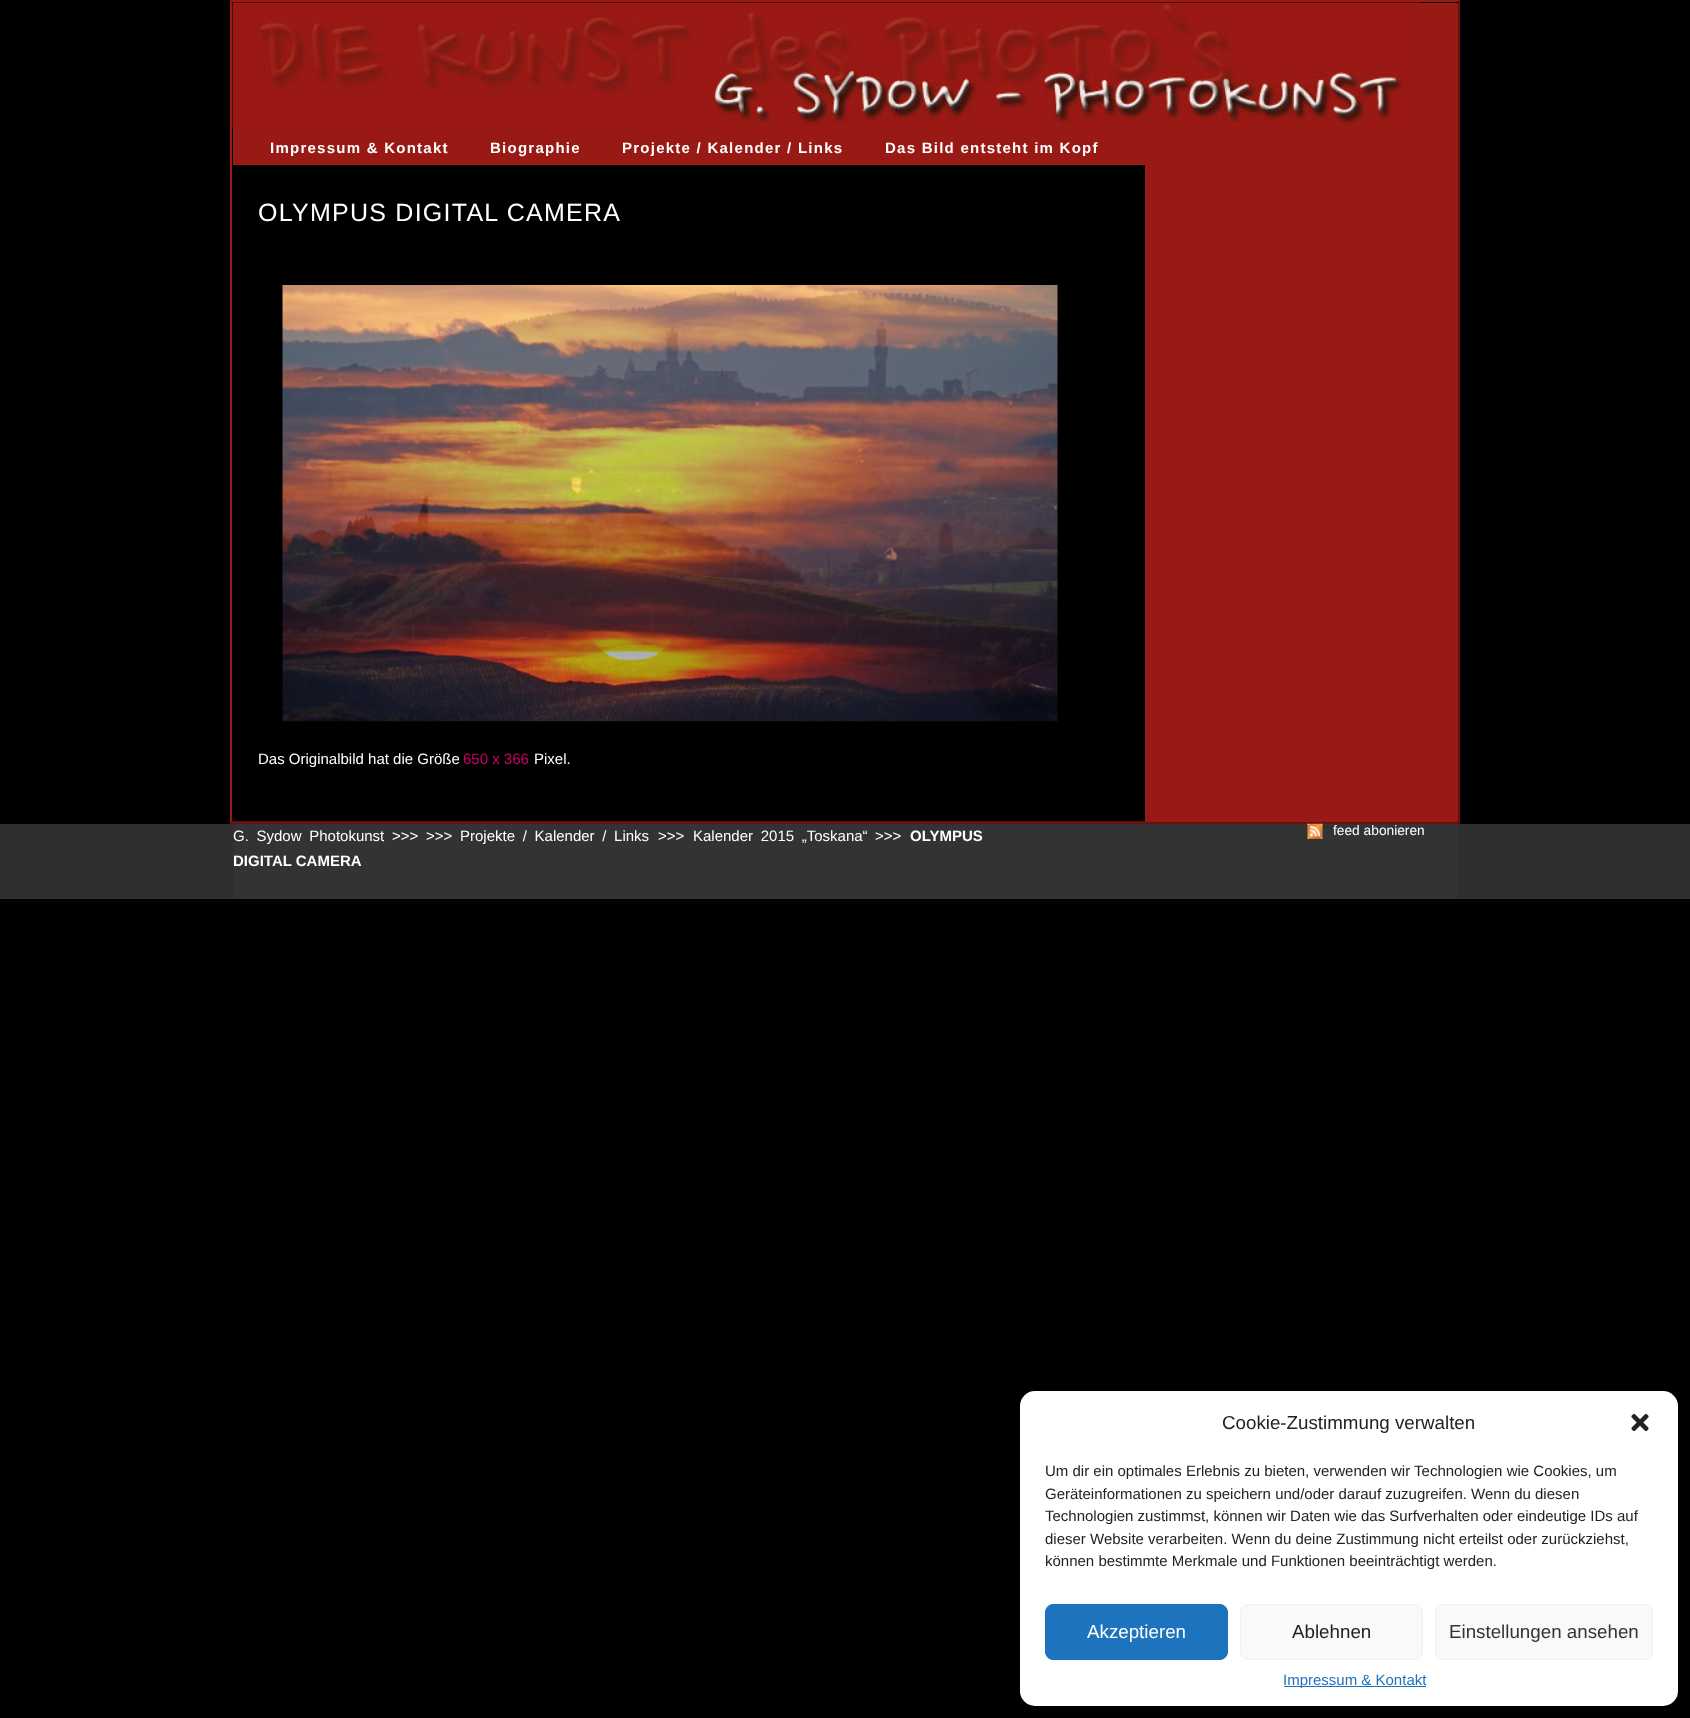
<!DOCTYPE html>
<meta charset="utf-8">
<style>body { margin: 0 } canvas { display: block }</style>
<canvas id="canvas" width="1690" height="1718"></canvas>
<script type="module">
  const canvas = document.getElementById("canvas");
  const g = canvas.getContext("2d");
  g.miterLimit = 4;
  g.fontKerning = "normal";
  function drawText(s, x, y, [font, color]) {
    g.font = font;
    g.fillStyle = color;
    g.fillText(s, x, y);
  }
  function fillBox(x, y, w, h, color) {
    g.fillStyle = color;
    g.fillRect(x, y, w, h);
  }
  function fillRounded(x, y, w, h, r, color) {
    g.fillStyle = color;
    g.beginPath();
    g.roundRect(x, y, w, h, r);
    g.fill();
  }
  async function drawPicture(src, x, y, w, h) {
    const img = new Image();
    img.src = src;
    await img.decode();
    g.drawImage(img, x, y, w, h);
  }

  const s1 = ["bold 15px Liberation Sans", "#FFFFFF"];
  const s2 = ["25px Liberation Sans", "#FFFFFF"];
  const s3 = ["15px Liberation Sans", "#FFFFFF"];
  const s4 = ["15px Liberation Sans", "#CC0066"];
  const s5 = ["13.75px Liberation Sans", "#FFFFFF"];
  const s6 = ["18.75px Liberation Sans", "#222222"];
  const s7 = ["15px Liberation Sans", "#222222"];
  const s8 = ["18.75px Liberation Sans", "#FFFFFF"];
  const s9 = ["18.75px Liberation Sans", "#333333"];
  const s10 = ["15px Liberation Sans", "#1E73BE"];

  fillBox(0, 0, 1690, 1718, "#000000");
  g.fillStyle = "#991914";
  g.beginPath();
  g.moveTo(230, 0);
  g.lineTo(1460, 0);
  g.lineTo(1458, 2);
  g.lineTo(232, 2);
  g.closePath();
  g.fill();
  g.fillStyle = "#66110D";
  g.beginPath();
  g.moveTo(1460, 0);
  g.lineTo(1460, 824);
  g.lineTo(1458, 821);
  g.lineTo(1458, 2);
  g.closePath();
  g.fill();
  g.beginPath();
  g.moveTo(1460, 824);
  g.lineTo(230, 824);
  g.lineTo(232, 821);
  g.lineTo(1458, 821);
  g.closePath();
  g.fill();
  g.fillStyle = "#991914";
  g.beginPath();
  g.moveTo(230, 824);
  g.lineTo(230, 0);
  g.lineTo(232, 2);
  g.lineTo(232, 821);
  g.closePath();
  g.fill();
  fillBox(233, 3, 1225, 162, "#991914");
  await drawPicture("pic1.png", 232, 2, 1188, 126);
  g.letterSpacing = "1.25px";
  drawText("Impressum & Kontakt", 270, 153, s1);
  drawText("Biographie", 490, 153, s1);
  drawText("Projekte / Kalender / Links", 622, 153, s1);
  drawText("Das Bild entsteht im Kopf", 885, 153, s1);
  fillBox(1145, 165, 313, 657, "#991917");
  drawText("OLYMPUS DIGITAL CAMERA", 258, 221, s2);
  await drawPicture("pic2.png", 282, 285, 776, 437);
  g.letterSpacing = "0px";
  drawText("Das Originalbild hat die Größe", 258, 764, s3);
  drawText("650 x 366", 463, 764, s4);
  drawText("Pixel.", 534, 764, s3);
  fillBox(0, 824, 1690, 75, "#2E2E2E");
  fillBox(233, 824, 1225, 75, "#333333");
  g.wordSpacing = "3.5px";
  drawText("G. Sydow Photokunst >>>", 233, 841, s3);
  g.wordSpacing = "0px";
  drawText(">>>", 426, 841, s3);
  g.wordSpacing = "3.5px";
  drawText("Projekte / Kalender / Links", 460, 841, s3);
  g.wordSpacing = "0px";
  drawText(">>>", 658, 841, s3);
  g.wordSpacing = "3.5px";
  drawText("Kalender 2015 „Toskana“", 693, 841, s3);
  g.wordSpacing = "0px";
  drawText(">>>", 875, 841, s3);
  drawText("OLYMPUS", 910, 841, s1);
  drawText("DIGITAL CAMERA", 233, 866, s1);
  await drawPicture("pic3.png", 1307, 823, 16, 16);
  drawText("feed abonieren", 1333, 835, s5);
  fillRounded(1020, 1391, 658, 315, 15, "#FFFFFF");
  drawText("Cookie-Zustimmung verwalten", 1222, 1429, s6);
  await drawPicture("pic4.png", 1631, 1413, 18, 18);
  drawText("Um dir ein optimales Erlebnis zu bieten, verwenden wir Technologien wie Cookies, um", 1045, 1476, s7);
  drawText("Geräteinformationen zu speichern und/oder darauf zuzugreifen. Wenn du diesen", 1045, 1499, s7);
  drawText("Technologien zustimmst, können wir Daten wie das Surfverhalten oder eindeutige IDs auf", 1045, 1521, s7);
  drawText("dieser Website verarbeiten. Wenn du deine Zustimmung nicht erteilst oder zurückziehst,", 1045, 1544, s7);
  drawText("können bestimmte Merkmale und Funktionen beeinträchtigt werden.", 1045, 1566, s7);
  g.fillStyle = "#1E73BE";
  g.beginPath();
  g.roundRect(1045.5, 1604.5, 182, 55, 7.5);
  g.fill();
  g.strokeStyle = "#1E73BE";
  g.stroke();
  drawText("Akzeptieren", 1087, 1638, s8);
  g.fillStyle = "#F9F9F9";
  g.beginPath();
  g.roundRect(1240.5, 1604.5, 182, 55, 7.5);
  g.fill();
  g.strokeStyle = "#F2F2F2";
  g.stroke();
  drawText("Ablehnen", 1292, 1638, s6);
  g.fillStyle = "#F9F9F9";
  g.beginPath();
  g.roundRect(1435.5, 1604.5, 217, 55, 7.5);
  g.fill();
  g.stroke();
  drawText("Einstellungen ansehen", 1449, 1638, s9);
  fillBox(1284, 1686, 142, 1, "#1E73BE");
  drawText("Impressum & Kontakt", 1283, 1685, s10);
</script>
